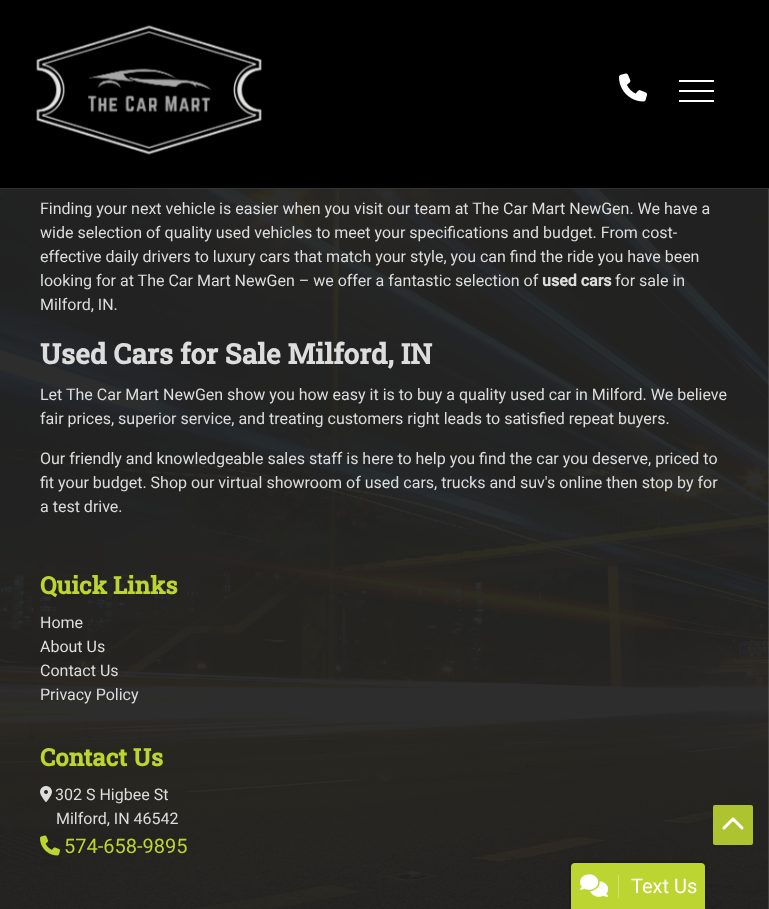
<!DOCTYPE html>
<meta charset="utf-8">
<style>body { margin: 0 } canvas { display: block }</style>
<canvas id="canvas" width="769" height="909"></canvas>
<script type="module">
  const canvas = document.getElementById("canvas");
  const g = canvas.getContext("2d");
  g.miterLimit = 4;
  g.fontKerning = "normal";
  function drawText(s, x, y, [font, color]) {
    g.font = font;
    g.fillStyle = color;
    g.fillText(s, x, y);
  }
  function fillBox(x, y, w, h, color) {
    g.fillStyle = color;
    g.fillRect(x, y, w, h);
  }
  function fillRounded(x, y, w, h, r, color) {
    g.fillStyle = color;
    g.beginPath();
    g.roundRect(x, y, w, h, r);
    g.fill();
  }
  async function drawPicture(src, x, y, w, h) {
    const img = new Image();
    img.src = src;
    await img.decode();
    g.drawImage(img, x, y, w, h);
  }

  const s1 = ["16px Roboto", "#DDDDDD"];
  const s2 = ["bold 16px Roboto", "#DDDDDD"];
  const s3 = ["bold 28px Roboto Slab", "#DDDDDD"];
  const s4 = ["bold 24px Roboto Slab", "#BCD531"];
  const s5 = ["20px Roboto", "#BCD531"];
  const s6 = ["20px Roboto", "#FFFFFF"];

  fillBox(0, 0, 769, 909, "#FFFFFF");
  await drawPicture("pic1.png", 0, 189, 769, 720);
  fillBox(0, 0, 769, 188, "#000000");
  fillBox(0, 188, 769, 1, "#333333");
  await drawPicture("pic2.png", 36, 25, 226, 130);
  await drawPicture("pic3.png", 619, 73, 28, 29);
  fillBox(679, 90, 35, 2, "#FFFFFF");
  fillBox(679, 80, 35, 2, "#FFFFFF");
  fillBox(679, 100, 35, 2, "#FFFFFF");
  drawText("Finding your next vehicle is easier when you visit our team at The Car Mart NewGen. We have a", 40, 214, s1);
  drawText("wide selection of quality used vehicles to meet your specifications and budget. From cost-", 40, 238, s1);
  drawText("effective daily drivers to luxury cars that match your style, you can find the ride you have been", 40, 262, s1);
  drawText("looking for at The Car Mart NewGen – we offer a fantastic selection of", 40, 286, s1);
  drawText("used cars", 542, 286, s2);
  drawText("for sale in", 615, 286, s1);
  drawText("Milford, IN.", 40, 310, s1);
  drawText("Used Cars for Sale Milford, IN", 40, 364, s3);
  drawText("Let The Car Mart NewGen show you how easy it is to buy a quality used car in Milford. We believe", 40, 400, s1);
  drawText("fair prices, superior service, and treating customers right leads to satisfied repeat buyers.", 40, 424, s1);
  drawText("Our friendly and knowledgeable sales staff is here to help you find the car you deserve, priced to", 40, 464, s1);
  drawText("fit your budget. Shop our virtual showroom of used cars, trucks and suv's online then stop by for", 40, 488, s1);
  drawText("a test drive.", 40, 512, s1);
  drawText("Quick Links", 40, 594, s4);
  drawText("Home", 40, 628, s1);
  drawText("About Us", 40, 652, s1);
  drawText("Contact Us", 40, 676, s1);
  drawText("Privacy Policy", 40, 700, s1);
  drawText("Contact Us", 40, 766, s4);
  await drawPicture("pic4.png", 40, 786, 12, 16);
  drawText("302 S Higbee St", 55, 800, s1);
  drawText("Milford, IN 46542", 56, 824, s1);
  await drawPicture("pic5.png", 40, 835, 20, 21);
  drawText("574-658-9895", 64, 853, s5);
  fillRounded(713, 805, 40, 40, 2, "rgba(188, 213, 49, 0.9)");
  await drawPicture("pic6.png", 722, 817, 22, 13);
  g.fillStyle = "rgba(0, 0, 0, 0.25)";
  g.filter = "blur(1px)";
  g.beginPath();
  g.roundRect(570, 861, 136, 48, 5);
  g.fill();
  g.filter = "none";
  g.fillStyle = "#BCD531";
  g.beginPath();
  g.roundRect(571, 863, 134, 46, [4, 4, 0, 0]);
  g.fill();
  fillBox(618, 875, 1, 23, "#D0E26F");
  await drawPicture("pic7.png", 580, 874, 29, 23);
  drawText("Text Us", 631, 893, s6);
</script>
